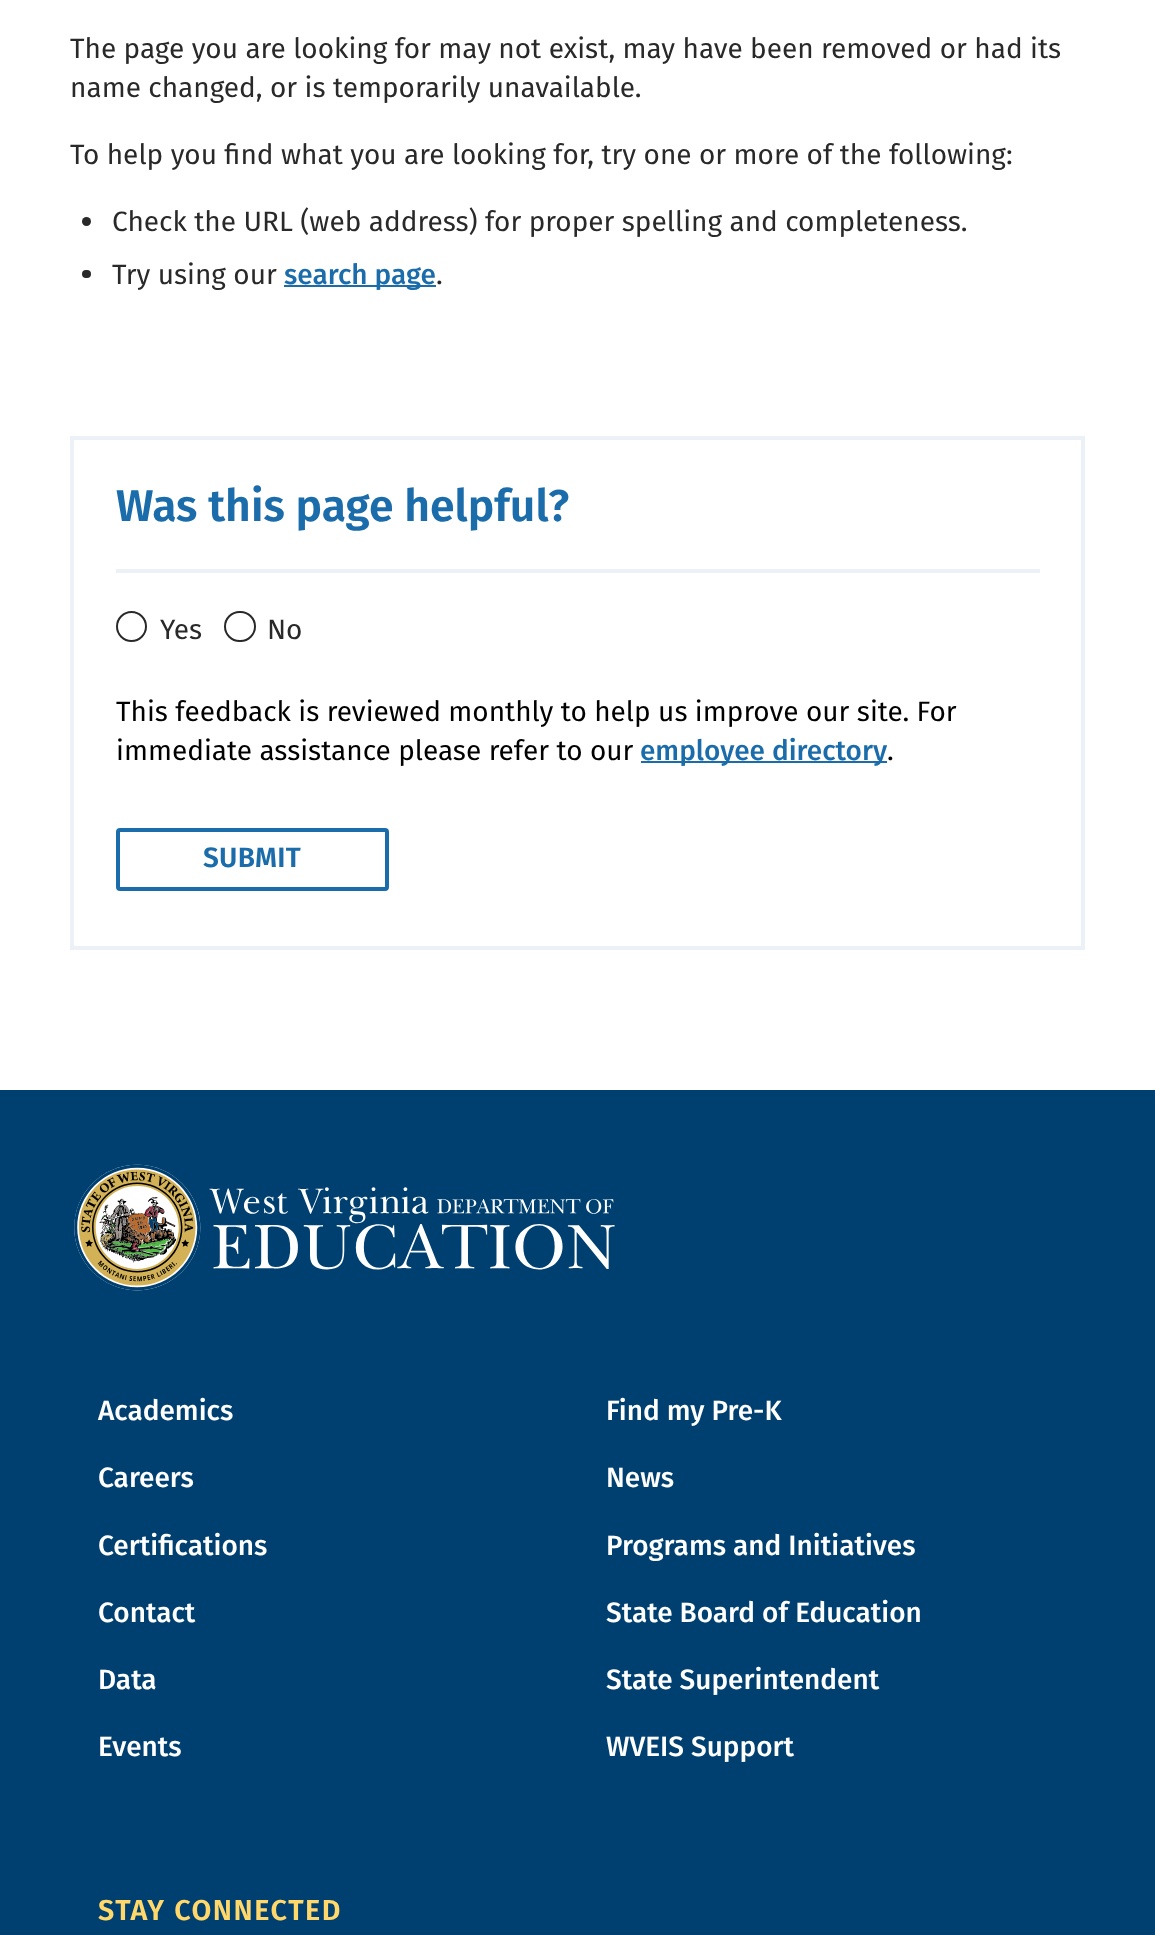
<!DOCTYPE html>
<meta charset="utf-8">
<style>body { margin: 0 } canvas { display: block }</style>
<canvas id="canvas" width="1155" height="1935"></canvas>
<script type="module">
  const canvas = document.getElementById("canvas");
  const g = canvas.getContext("2d");
  g.miterLimit = 4;
  g.fontKerning = "normal";
  function drawText(s, x, y, [font, color]) {
    g.font = font;
    g.fillStyle = color;
    g.fillText(s, x, y);
  }
  function fillBox(x, y, w, h, color) {
    g.fillStyle = color;
    g.fillRect(x, y, w, h);
  }
  function fillRounded(x, y, w, h, r, color) {
    g.fillStyle = color;
    g.beginPath();
    g.roundRect(x, y, w, h, r);
    g.fill();
  }
  async function drawPicture(src, x, y, w, h) {
    const img = new Image();
    img.src = src;
    await img.decode();
    g.drawImage(img, x, y, w, h);
  }

  const s1 = ["28px Fira Sans", "#292929"];
  const s2 = ["500 28px Fira Sans", "#1B6CAA"];
  const s3 = ["600 44.5px Fira Sans", "#1B6CAA"];
  const s4 = ["28px Fira Sans", "#000000"];
  const s5 = ["600 28px Fira Sans", "#1B6CAA"];
  const s6 = ["500 28px Fira Sans", "#FFFFFF"];
  const s7 = ["600 28.75px Fira Sans", "#FFD76A"];

  fillBox(0, 0, 1155, 1935, "#FFFFFF");
  drawText("The page you are looking for may not exist, may have been removed or had its", 70, 58, s1);
  drawText("name changed, or is temporarily unavailable.", 70, 97, s1);
  drawText("To help you find what you are looking for, try one or more of the following:", 70, 164, s1);
  g.beginPath();
  g.arc(86.5, 221.5, 4.5, 0, Math.PI * 2);
  g.fill();
  drawText("Check the URL (web address) for proper spelling and completeness.", 112, 231, s1);
  fillRounded(82, 270, 9, 8, 4, "#292929");
  drawText("Try using our", 112, 284, s1);
  fillBox(284, 285, 152, 2, "#1B6CAA");
  drawText("search page", 284, 284, s2);
  drawText(".", 436, 284, s1);
  g.strokeStyle = "#ECF1F7";
  g.lineWidth = 4;
  g.strokeRect(72, 438, 1011, 510);
  fillBox(116, 569, 924, 4, "#ECF1F7");
  drawText("Was this page helpful?", 116, 521, s3);
  g.beginPath();
  g.arc(131.5, 626.5, 14.5, 0, Math.PI * 2);
  g.strokeStyle = "#292929";
  g.lineWidth = 2;
  g.stroke();
  drawText("Yes", 160, 639, s1);
  g.beginPath();
  g.roundRect(225, 612, 30, 29, 14.5);
  g.stroke();
  drawText("No", 267, 639, s1);
  drawText("This feedback is reviewed monthly to help us improve our site. For", 116, 721, s4);
  drawText("immediate assistance please refer to our", 116, 760, s4);
  fillBox(641, 761, 246, 2, "#1B6CAA");
  drawText("employee directory", 640, 760, s2);
  drawText(".", 887, 760, s4);
  g.beginPath();
  g.roundRect(118, 830, 269, 59, 2);
  g.strokeStyle = "#1B6CAA";
  g.lineWidth = 4;
  g.stroke();
  g.letterSpacing = "0.25px";
  drawText("SUBMIT", 203, 867, s5);
  fillBox(0, 1090, 1155, 845, "#004071");
  await drawPicture("pic1.png", 74, 1164, 541, 127);
  g.letterSpacing = "0px";
  drawText("Academics", 98, 1420, s6);
  drawText("Find my Pre-K", 606, 1420, s6);
  drawText("Careers", 98, 1487, s6);
  drawText("News", 606, 1487, s6);
  drawText("Certifications", 98, 1555, s6);
  drawText("Programs and Initiatives", 606, 1555, s6);
  drawText("Contact", 98, 1622, s6);
  drawText("State Board of Education", 606, 1622, s6);
  drawText("Data", 98, 1689, s6);
  drawText("State Superintendent", 606, 1689, s6);
  drawText("Events", 98, 1756, s6);
  drawText("WVEIS Support", 606, 1756, s6);
  g.letterSpacing = "1.5px";
  drawText("STAY CONNECTED", 98, 1920, s7);
</script>
